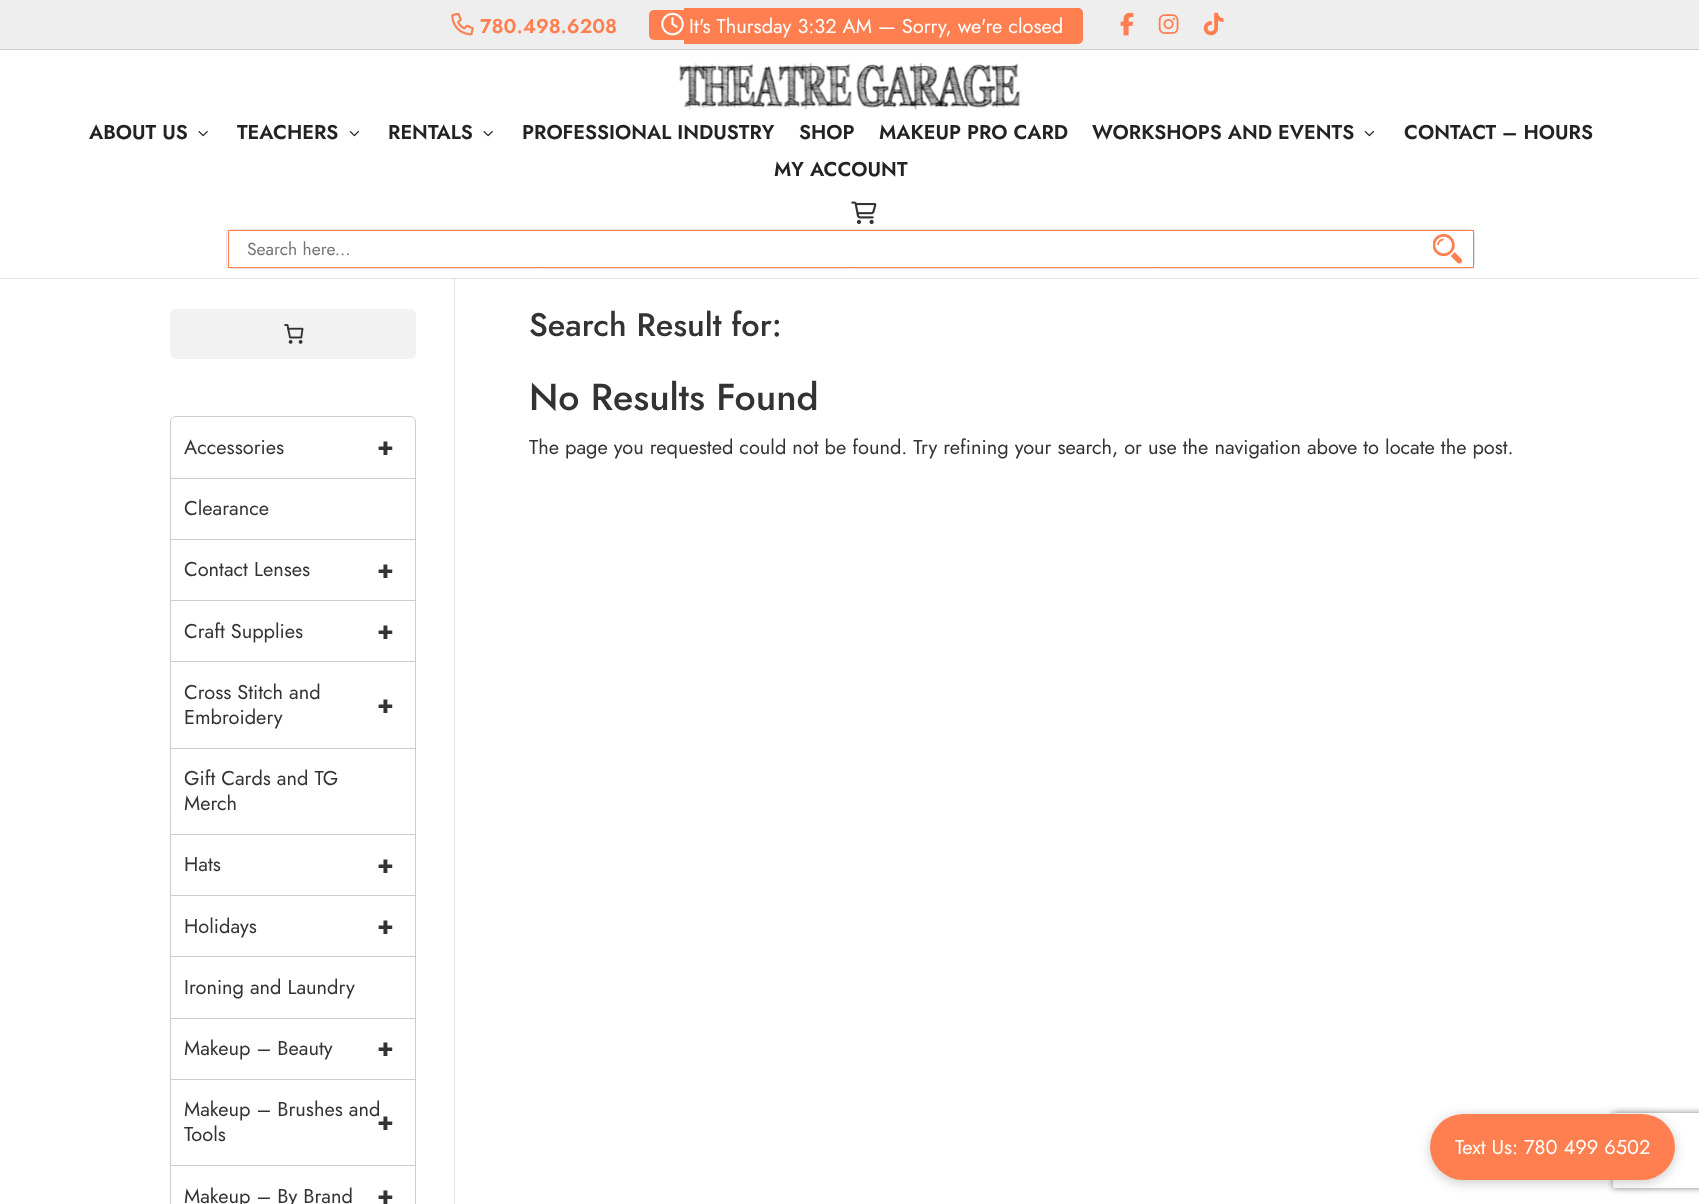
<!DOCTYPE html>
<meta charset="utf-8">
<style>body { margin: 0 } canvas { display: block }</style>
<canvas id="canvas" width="1699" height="1204"></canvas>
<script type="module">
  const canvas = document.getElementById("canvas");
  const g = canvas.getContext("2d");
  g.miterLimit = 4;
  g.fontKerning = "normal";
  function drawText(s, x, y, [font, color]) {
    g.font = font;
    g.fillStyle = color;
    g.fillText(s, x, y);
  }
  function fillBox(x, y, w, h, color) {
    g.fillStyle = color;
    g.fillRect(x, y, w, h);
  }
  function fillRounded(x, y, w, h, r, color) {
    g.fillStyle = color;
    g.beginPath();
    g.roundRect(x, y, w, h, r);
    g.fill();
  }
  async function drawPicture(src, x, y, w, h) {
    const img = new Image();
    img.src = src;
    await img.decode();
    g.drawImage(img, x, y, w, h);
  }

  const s1 = ["600 20px Jost", "#FF7F50"];
  const s2 = ["20px Jost", "#FFFFFF"];
  const s3 = ["600 20px Jost", "#232323"];
  const s4 = ["17.5px Jost", "#757575"];
  const s5 = ["500 32.5px Jost", "#333333"];
  const s6 = ["500 37.5px Jost", "#333333"];
  const s7 = ["20px Jost", "#333333"];
  const s8 = ["bold 25px Jost", "#333333"];

  fillBox(0, 0, 1699, 1204, "#FFFFFF");
  fillBox(0, 278, 1699, 1, "#E6E6E6");
  fillBox(0, 0, 1699, 49, "#EEEEEE");
  fillBox(0, 49, 1699, 1, "#CCCCCC");
  await drawPicture("pic1.png", 451, 12, 23, 24);
  drawText("780.498.6208", 480, 33, s1);
  g.beginPath();
  g.roundRect(649, 10, 35, 30, [5, 0, 0, 5]);
  g.fill();
  fillBox(684, 8, 380, 36, "#FF7F50");
  g.beginPath();
  g.roundRect(1064, 8, 19, 36, [0, 5, 5, 0]);
  g.fill();
  await drawPicture("pic2.png", 661, 12, 23, 24);
  drawText("It's Thursday 3:32 AM — Sorry, we're closed", 689, 33, s2);
  await drawPicture("pic3.png", 1120, 12, 14, 24);
  await drawPicture("pic4.png", 1158, 14, 21, 20);
  await drawPicture("pic5.png", 1203, 12, 21, 24);
  await drawPicture("pic6.png", 679, 62, 342, 48);
  drawText("ABOUT US", 89, 139, s3);
  await drawPicture("pic7.png", 198, 131, 10, 6);
  drawText("TEACHERS", 237, 139, s3);
  await drawPicture("pic8.png", 349, 131, 10, 6);
  drawText("RENTALS", 388, 139, s3);
  await drawPicture("pic7.png", 483, 131, 10, 6);
  drawText("PROFESSIONAL INDUSTRY", 522, 139, s3);
  drawText("SHOP", 799, 139, s3);
  drawText("MAKEUP PRO CARD", 879, 139, s3);
  drawText("WORKSHOPS AND EVENTS", 1092, 139, s3);
  await drawPicture("pic8.png", 1364, 131, 10, 6);
  drawText("CONTACT – HOURS", 1404, 139, s3);
  drawText("MY ACCOUNT", 774, 176, s3);
  await drawPicture("pic9.png", 851, 201, 26, 23);
  g.beginPath();
  g.roundRect(226.5, 229.5, 1248, 39, 5.5);
  g.strokeStyle = "#E2E1E6";
  g.stroke();
  g.strokeStyle = "#FF7F50";
  g.strokeRect(228.5, 230.5, 1245, 37);
  drawText("Search here...", 247, 255, s4);
  await drawPicture("pic10.png", 1433, 234, 30, 30);
  fillBox(454, 278, 1, 926, "#E2E2E2");
  fillBox(454, 278, 1, 1, "#CBCBCB");
  drawText("Search Result for:", 529, 336, s5);
  drawText("No Results Found", 529, 410, s6);
  drawText("The page you requested could not be found. Try refining your search, or use the navigation above to locate the post.", 529, 454, s7);
  fillRounded(170, 309, 246, 50, 6, "#F2F2F2");
  await drawPicture("pic11.png", 284, 324, 20, 20);
  g.beginPath();
  g.roundRect(170.5, 416.5, 245, 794, 5.5);
  g.strokeStyle = "#CCCCCC";
  g.stroke();
  fillBox(171, 478, 244, 1, "#CCCCCC");
  drawText("Accessories", 184, 454, s7);
  drawText("+", 377, 455, s8);
  fillBox(171, 539, 244, 1, "#CCCCCC");
  drawText("Clearance", 184, 515, s7);
  fillBox(171, 600, 244, 1, "#CCCCCC");
  drawText("Contact Lenses", 184, 576, s7);
  drawText("+", 377, 578, s8);
  fillBox(171, 661, 244, 1, "#CCCCCC");
  drawText("Craft Supplies", 184, 638, s7);
  drawText("+", 377, 639, s8);
  fillBox(171, 748, 244, 1, "#CCCCCC");
  drawText("Cross Stitch and", 184, 699, s7);
  drawText("+", 377, 713, s8);
  drawText("Embroidery", 184, 724, s7);
  fillBox(171, 834, 244, 1, "#CCCCCC");
  drawText("Gift Cards and TG", 184, 785, s7);
  drawText("Merch", 184, 810, s7);
  fillBox(171, 895, 244, 1, "#CCCCCC");
  drawText("Hats", 184, 871, s7);
  drawText("+", 377, 873, s8);
  fillBox(171, 956, 244, 1, "#CCCCCC");
  drawText("Holidays", 184, 933, s7);
  drawText("+", 377, 934, s8);
  fillBox(171, 1018, 244, 1, "#CCCCCC");
  drawText("Ironing and Laundry", 184, 994, s7);
  fillBox(171, 1079, 244, 1, "#CCCCCC");
  drawText("Makeup – Beauty", 184, 1055, s7);
  drawText("+", 377, 1056, s8);
  fillBox(171, 1165, 244, 1, "#CCCCCC");
  drawText("Makeup – Brushes and", 184, 1116, s7);
  drawText("+", 377, 1130, s8);
  drawText("Tools", 184, 1141, s7);
  drawText("Makeup – By Brand", 184, 1203, s7);
  drawText("+", 377, 1204, s8);
  g.fillStyle = "rgba(0, 0, 0, 0.2)";
  g.filter = "blur(6px)";
  g.beginPath();
  g.roundRect(1430, 1116, 245, 67, 33.5);
  g.fill();
  g.filter = "none";
  g.save();
  g.beginPath();
  g.moveTo(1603, 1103);
  g.lineTo(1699, 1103);
  g.lineTo(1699, 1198);
  g.lineTo(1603, 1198);
  g.closePath();
  g.moveTo(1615.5, 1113);
  g.lineTo(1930.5, 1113);
  g.bezierCurveTo(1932, 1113, 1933, 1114, 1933, 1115.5);
  g.lineTo(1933, 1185.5);
  g.bezierCurveTo(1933, 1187, 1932, 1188, 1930.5, 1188);
  g.lineTo(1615.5, 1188);
  g.bezierCurveTo(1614, 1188, 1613, 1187, 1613, 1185.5);
  g.lineTo(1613, 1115.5);
  g.bezierCurveTo(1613, 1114, 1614, 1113, 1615.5, 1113);
  g.closePath();
  g.clip("evenodd");
  g.fillStyle = "#808080";
  g.filter = "blur(3px)";
  g.beginPath();
  g.roundRect(1613, 1113, 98, 75, 2.5);
  g.fill();
  g.filter = "none";
  g.restore();
  fillRounded(1430, 1114, 245, 66, 33, "#FF7F50");
  drawText("Text Us: 780 499 6502", 1455, 1154, s2);
</script>
